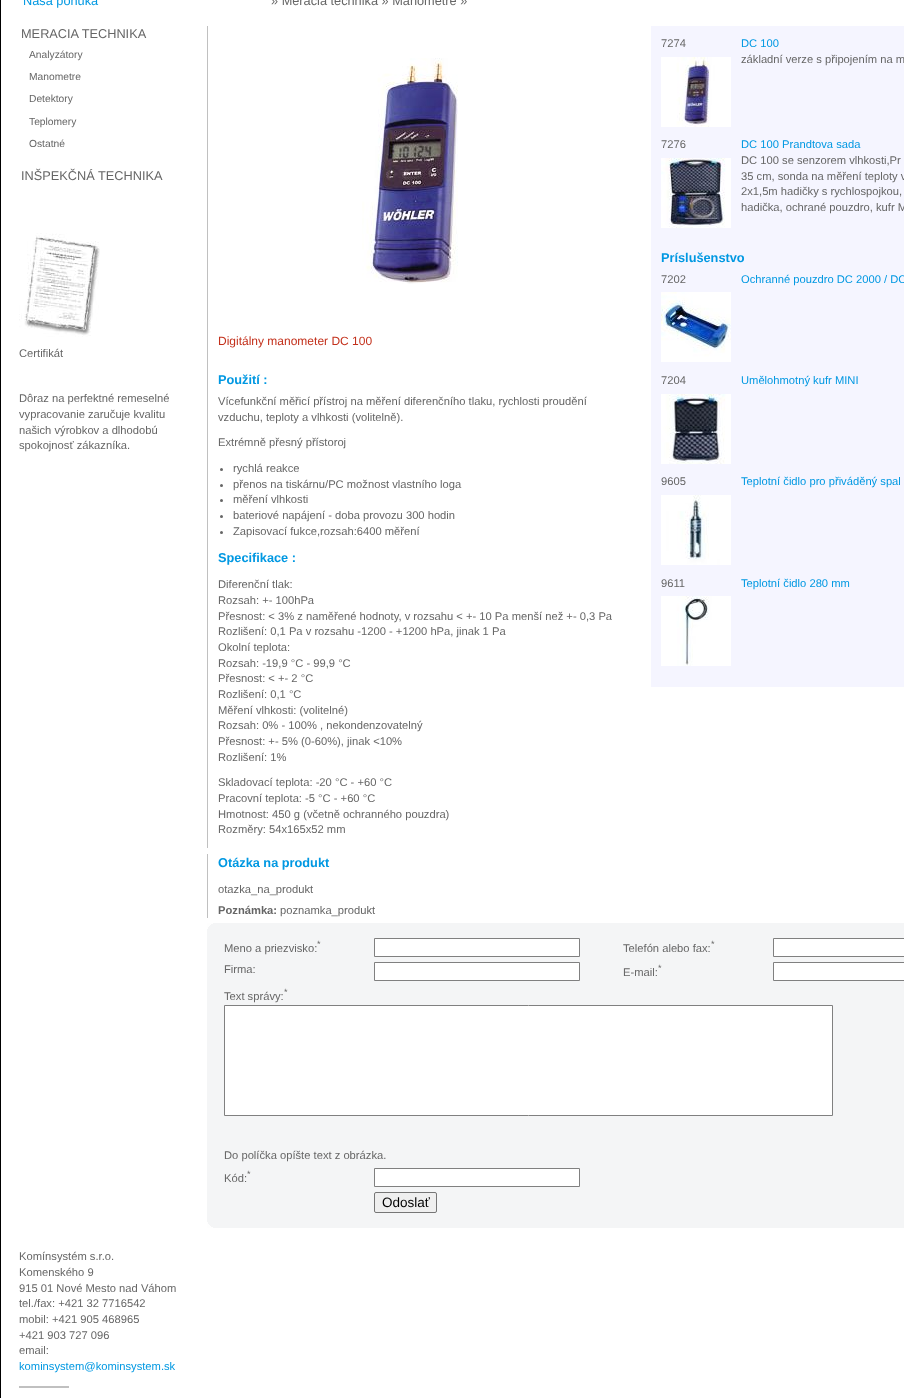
<!DOCTYPE html>
<meta charset="utf-8">
<style>body { margin: 0 } canvas { display: block }</style>
<canvas id="canvas" width="904" height="1398"></canvas>
<script type="module">
  const canvas = document.getElementById("canvas");
  const g = canvas.getContext("2d");
  g.miterLimit = 4;
  g.fontKerning = "normal";
  function drawText(s, x, y, [font, color]) {
    g.font = font;
    g.fillStyle = color;
    g.fillText(s, x, y);
  }
  function fillBox(x, y, w, h, color) {
    g.fillStyle = color;
    g.fillRect(x, y, w, h);
  }
  async function drawPicture(src, x, y, w, h) {
    const img = new Image();
    img.src = src;
    await img.decode();
    g.drawImage(img, x, y, w, h);
  }

  const s1 = ["12.75px Liberation Sans", "#0098E2"];
  const s2 = ["12.75px Liberation Sans", "#666666"];
  const s3 = ["10.25px Liberation Sans", "#666666"];
  const s4 = ["11.2px Liberation Sans", "#666666"];
  const s5 = ["12px Liberation Sans", "#C3301B"];
  const s6 = ["bold 12.75px Liberation Sans", "#0098E2"];
  const s7 = ["11.2px Liberation Sans", "#0098E2"];
  const s8 = ["bold 11.2px Liberation Sans", "#666666"];
  const s9 = ["9px Liberation Sans", "#666666"];
  const s10 = ["13.5px Liberation Sans", "#000000"];

  fillBox(0, 0, 904, 1398, "#FFFFFF");
  fillBox(0, 0, 1, 1398, "#000000");
  drawText("Naša ponuka", 23, 5, s1);
  drawText("MERACIA TECHNIKA", 21, 38, s2);
  drawText("Analyzátory", 29, 58, s3);
  drawText("Manometre", 29, 80, s3);
  drawText("Detektory", 29, 102, s3);
  drawText("Teplomery", 29, 125, s3);
  drawText("Ostatné", 29, 147, s3);
  drawText("INŠPEKČNÁ TECHNIKA", 21, 180, s2);
  await drawPicture("pic1.png", 19, 233, 81, 104);
  drawText("Certifikát", 19, 357, s4);
  drawText("Dôraz na perfektné remeselné", 19, 402, s4);
  drawText("vypracovanie zaručuje kvalitu", 19, 418, s4);
  drawText("našich výrobkov a dlhodobú", 19, 434, s4);
  drawText("spokojnosť zákazníka.", 19, 449, s4);
  drawText("» Meracia technika » Manometre »", 271, 5, s2);
  fillBox(207, 26, 1, 822, "#C0C0C0");
  await drawPicture("pic2.png", 362, 58, 96, 226);
  drawText("Digitálny manometer DC 100", 218, 345, s5);
  drawText("Použití :", 218, 384, s6);
  drawText("Vícefunkční měřicí přístroj na měření diferenčního tlaku, rychlosti proudění", 218, 405, s4);
  drawText("vzduchu, teploty a vlhkosti (volitelně).", 218, 421, s4);
  drawText("Extrémně přesný přístoroj", 218, 446, s4);
  g.beginPath();
  g.arc(221.5, 469.5, 1.5, 0, Math.PI * 2);
  g.fill();
  drawText("rychlá reakce", 233, 472, s4);
  g.beginPath();
  g.arc(221.5, 485.5, 1.5, 0, Math.PI * 2);
  g.fill();
  drawText("přenos na tiskárnu/PC možnost vlastního loga", 233, 488, s4);
  g.beginPath();
  g.arc(221.5, 500.5, 1.5, 0, Math.PI * 2);
  g.fill();
  drawText("měření vlhkosti", 233, 503, s4);
  g.beginPath();
  g.arc(221.5, 516.5, 1.5, 0, Math.PI * 2);
  g.fill();
  drawText("bateriové napájení - doba provozu 300 hodin", 233, 519, s4);
  g.beginPath();
  g.arc(221.5, 532.5, 1.5, 0, Math.PI * 2);
  g.fill();
  drawText("Zapisovací fukce,rozsah:6400 měření", 233, 535, s4);
  drawText("Specifikace :", 218, 562, s6);
  drawText("Diferenční tlak:", 218, 588, s4);
  drawText("Rozsah: +- 100hPa", 218, 604, s4);
  drawText("Přesnost: < 3% z naměřené hodnoty, v rozsahu < +- 10 Pa menší než +- 0,3 Pa", 218, 620, s4);
  drawText("Rozlišení: 0,1 Pa v rozsahu -1200 - +1200 hPa, jinak 1 Pa", 218, 635, s4);
  drawText("Okolní teplota:", 218, 651, s4);
  drawText("Rozsah: -19,9 °C - 99,9 °C", 218, 667, s4);
  drawText("Přesnost: < +- 2 °C", 218, 682, s4);
  drawText("Rozlišení: 0,1 °C", 218, 698, s4);
  drawText("Měření vlhkosti: (volitelné)", 218, 714, s4);
  drawText("Rozsah: 0% - 100% , nekondenzovatelný", 218, 729, s4);
  drawText("Přesnost: +- 5% (0-60%), jinak <10%", 218, 745, s4);
  drawText("Rozlišení: 1%", 218, 761, s4);
  drawText("Skladovací teplota: -20 °C - +60 °C", 218, 786, s4);
  drawText("Pracovní teplota: -5 °C - +60 °C", 218, 802, s4);
  drawText("Hmotnost: 450 g (včetně ochranného pouzdra)", 218, 818, s4);
  drawText("Rozměry: 54x165x52 mm", 218, 833, s4);
  fillBox(651, 26, 253, 661, "#F5F5FF");
  drawText("7274", 661, 47, s4);
  await drawPicture("pic3.png", 661, 57, 70, 70);
  drawText("DC 100", 741, 47, s7);
  drawText("základní verze s připojením na m", 741, 63, s4);
  drawText("7276", 661, 148, s4);
  await drawPicture("pic4.png", 661, 158, 70, 70);
  drawText("DC 100 Prandtova sada", 741, 148, s7);
  drawText("DC 100 se senzorem vlhkosti,Pr", 741, 164, s4);
  drawText("35 cm, sonda na měření teploty v", 741, 180, s4);
  drawText("2x1,5m hadičky s rychlospojkou,", 741, 195, s4);
  drawText("hadička, ochrané pouzdro, kufr M", 741, 211, s4);
  drawText("Príslušenstvo", 661, 262, s6);
  drawText("7202", 661, 283, s4);
  await drawPicture("pic5.png", 661, 292, 70, 70);
  drawText("Ochranné pouzdro DC 2000 / DC", 741, 283, s7);
  drawText("7204", 661, 384, s4);
  await drawPicture("pic6.png", 661, 394, 70, 70);
  drawText("Umělohmotný kufr MINI", 741, 384, s7);
  drawText("9605", 661, 485, s4);
  await drawPicture("pic7.png", 661, 495, 70, 70);
  drawText("Teplotní čidlo pro přiváděný spal", 741, 485, s7);
  drawText("9611", 661, 587, s4);
  await drawPicture("pic8.png", 661, 596, 70, 70);
  drawText("Teplotní čidlo 280 mm", 741, 587, s7);
  fillBox(207, 854, 1, 64, "#C0C0C0");
  drawText("Otázka na produkt", 218, 867, s6);
  drawText("otazka_na_produkt", 218, 893, s4);
  drawText("Poznámka:", 218, 914, s8);
  drawText("poznamka_produkt", 280, 914, s4);
  fillBox(207, 923, 697, 305, "#F4F5F6");
  await drawPicture("pic9.png", 207, 923, 6, 6);
  await drawPicture("pic10.png", 207, 1222, 6, 6);
  drawText("*", 317, 947, s9);
  drawText("Meno a priezvisko:", 224, 952, s4);
  g.fillStyle = "#FFFFFF";
  g.beginPath();
  g.rect(374.5, 938.5, 205, 18);
  g.fill();
  g.strokeStyle = "#808080";
  g.stroke();
  drawText("Firma:", 224, 973, s4);
  g.fillStyle = "#FFFFFF";
  g.beginPath();
  g.rect(374.5, 962.5, 205, 18);
  g.fill();
  g.stroke();
  drawText("*", 711, 947, s9);
  drawText("Telefón alebo fax:", 623, 952, s4);
  g.fillStyle = "#FFFFFF";
  g.beginPath();
  g.rect(773.5, 938.5, 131, 18);
  g.fill();
  g.stroke();
  drawText("*", 658, 971, s9);
  drawText("E-mail:", 623, 976, s4);
  g.fillStyle = "#FFFFFF";
  g.beginPath();
  g.rect(773.5, 962.5, 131, 18);
  g.fill();
  g.stroke();
  drawText("*", 284, 995, s9);
  drawText("Text správy:", 224, 1000, s4);
  g.fillStyle = "#FFFFFF";
  g.beginPath();
  g.rect(224.5, 1005.5, 608, 110);
  g.fill();
  g.stroke();
  drawText("Do políčka opíšte text z obrázka.", 224, 1159, s4);
  drawText("*", 247, 1177, s9);
  drawText("Kód:", 224, 1182, s4);
  g.fillStyle = "#FFFFFF";
  g.beginPath();
  g.rect(374.5, 1168.5, 205, 18);
  g.fill();
  g.stroke();
  g.fillStyle = "#EFEFEF";
  g.beginPath();
  g.roundRect(374.5, 1192.5, 62, 20, 1.5);
  g.fill();
  g.strokeStyle = "#767676";
  g.stroke();
  drawText("Odoslať", 382, 1207, s10);
  drawText("Komínsystém s.r.o.", 19, 1260, s4);
  drawText("Komenského 9", 19, 1276, s4);
  drawText("915 01 Nové Mesto nad Váhom", 19, 1292, s4);
  drawText("tel./fax: +421 32 7716542", 19, 1307, s4);
  drawText("mobil: +421 905 468965", 19, 1323, s4);
  drawText("+421 903 727 096", 19, 1339, s4);
  drawText("email:", 19, 1354, s4);
  drawText("kominsystem@kominsystem.sk", 19, 1370, s7);
  fillBox(19, 1386, 50, 2, "#C0C0C0");
</script>
